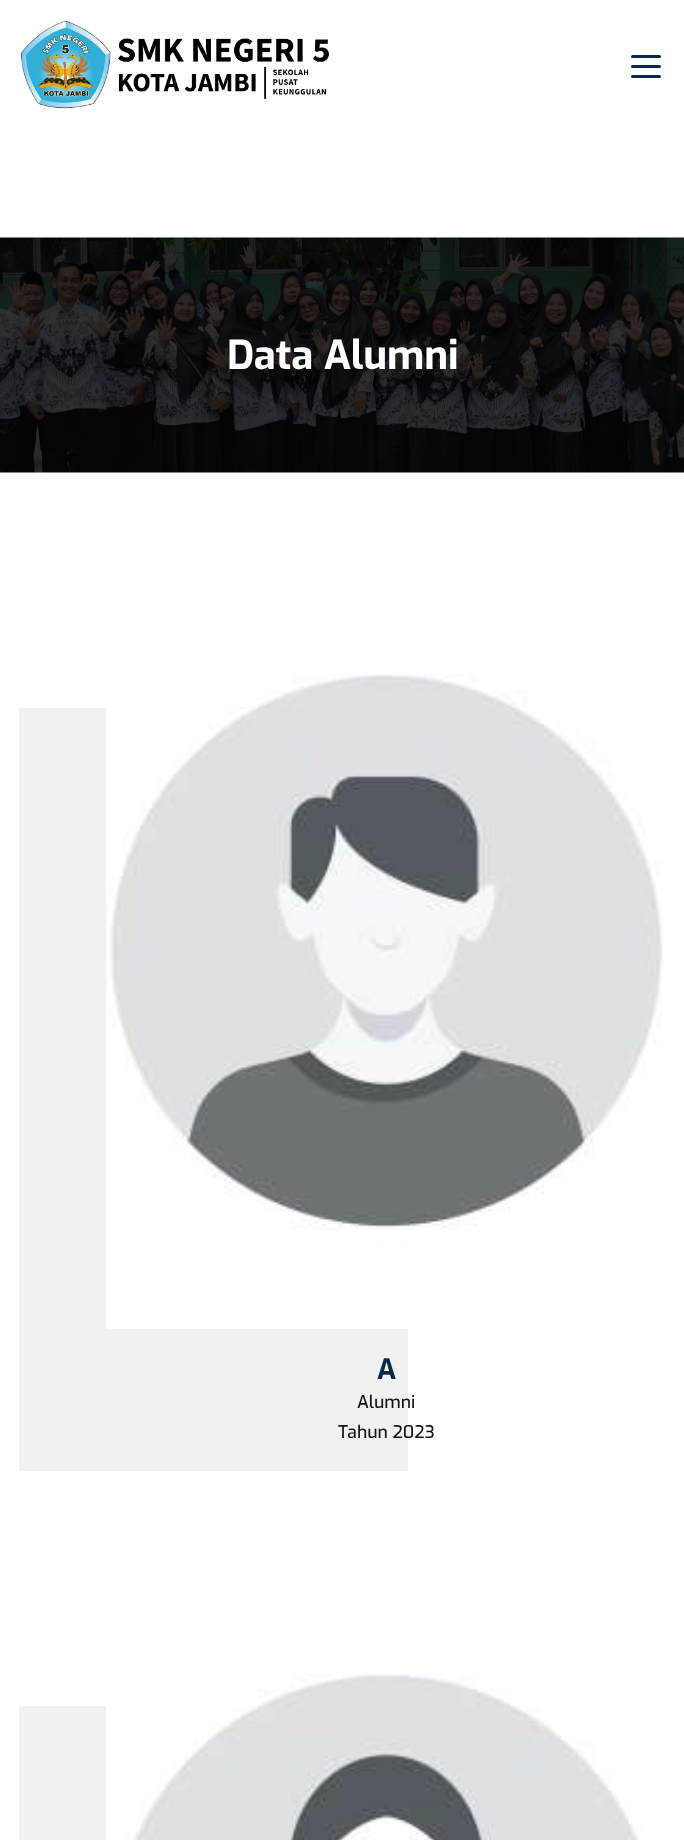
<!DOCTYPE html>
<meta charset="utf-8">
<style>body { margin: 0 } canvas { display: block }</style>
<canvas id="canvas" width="684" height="1840"></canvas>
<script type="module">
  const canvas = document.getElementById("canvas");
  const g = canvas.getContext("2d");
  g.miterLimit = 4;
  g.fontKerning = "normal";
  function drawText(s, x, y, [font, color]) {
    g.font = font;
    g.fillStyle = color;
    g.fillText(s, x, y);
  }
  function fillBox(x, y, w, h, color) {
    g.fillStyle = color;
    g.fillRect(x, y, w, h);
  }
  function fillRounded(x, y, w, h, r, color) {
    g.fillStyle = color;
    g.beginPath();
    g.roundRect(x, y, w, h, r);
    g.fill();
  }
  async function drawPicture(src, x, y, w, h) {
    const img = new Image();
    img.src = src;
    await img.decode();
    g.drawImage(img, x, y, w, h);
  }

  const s1 = ["bold 40px Exo", "#FFFFFF"];
  const s2 = ["bold 28px Exo", "#07294D"];
  const s3 = ["500 17.5px Exo", "#151515"];

  fillBox(0, 0, 684, 1840, "#FFFFFF");
  await drawPicture("pic1.png", 21, 19, 308, 90);
  fillRounded(631, 75, 30, 3, 1.5, "#07294D");
  fillRounded(631, 65, 30, 3, 1.5, "#07294D");
  fillRounded(631, 55, 30, 3, 1.5, "#07294D");
  await drawPicture("pic2.png", 0, 237, 684, 236);
  drawText("Data Alumni", 227, 369, s1);
  fillBox(19, 708, 389, 763, "#F1F1F1");
  await drawPicture("pic3.png", 106, 674, 557, 655);
  drawText("A", 377, 1379, s2);
  drawText("Alumni", 357, 1408, s3);
  drawText("Tahun 2023", 338, 1438, s3);
  fillBox(19, 1706, 88, 134, "#F1F1F1");
  await drawPicture("pic4.png", 106, 1673, 535, 167);
</script>
